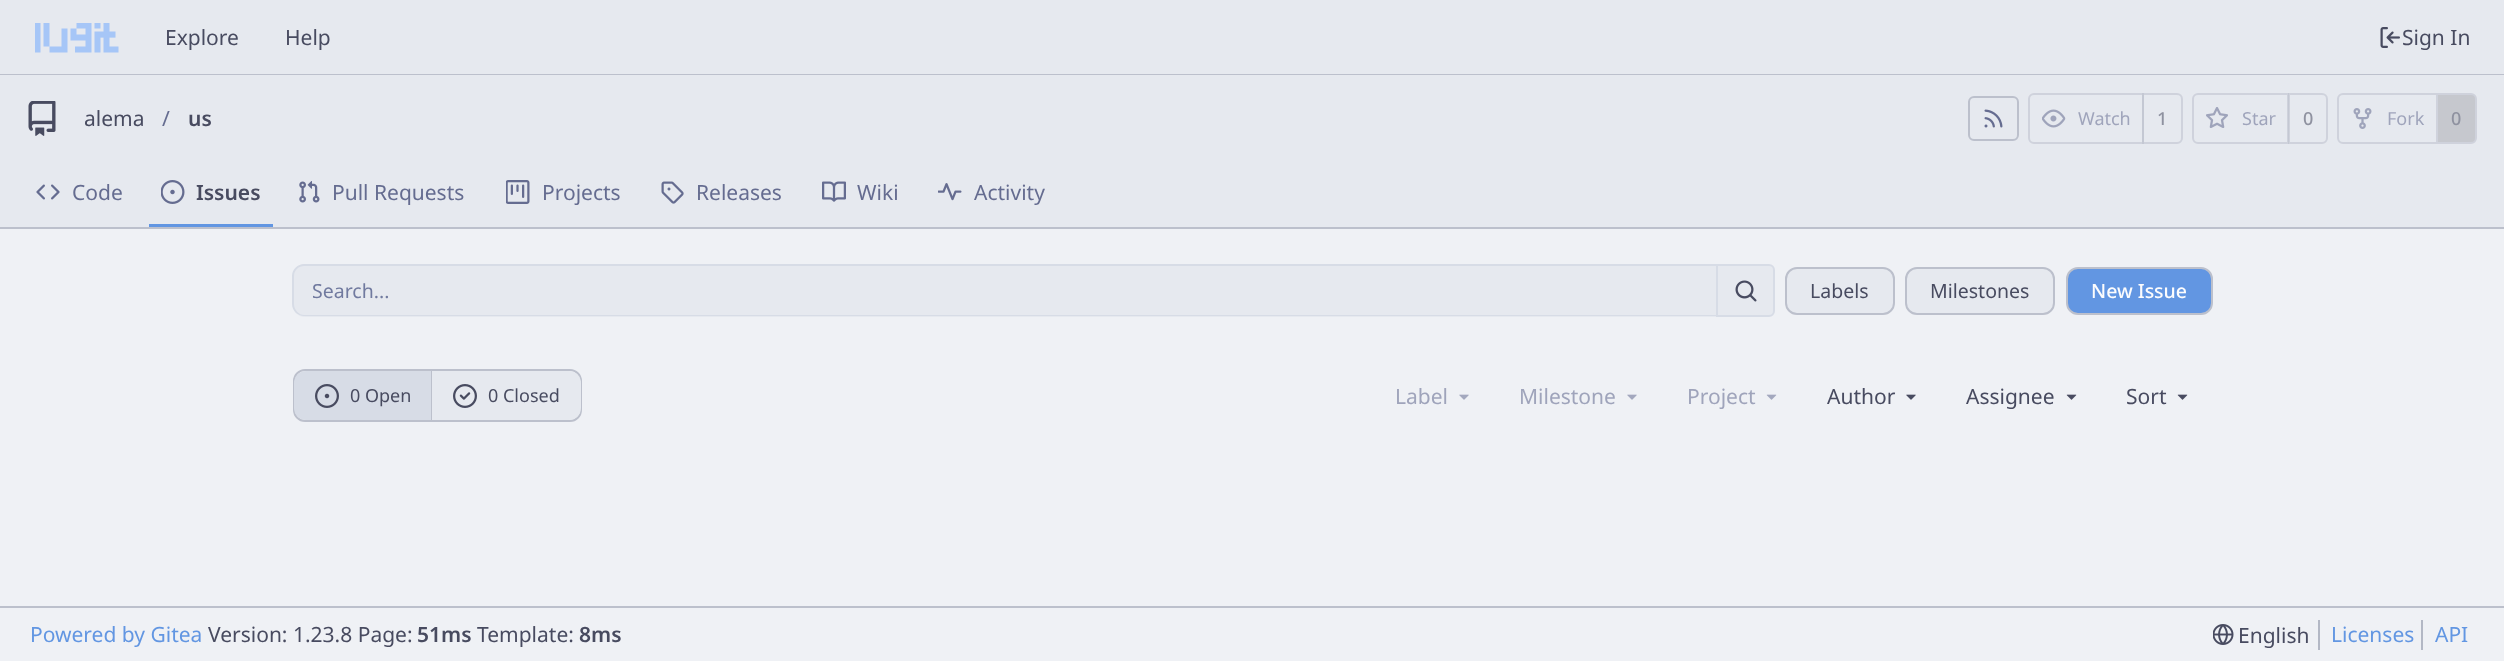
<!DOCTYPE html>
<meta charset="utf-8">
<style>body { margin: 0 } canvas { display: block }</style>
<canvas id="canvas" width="2504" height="661"></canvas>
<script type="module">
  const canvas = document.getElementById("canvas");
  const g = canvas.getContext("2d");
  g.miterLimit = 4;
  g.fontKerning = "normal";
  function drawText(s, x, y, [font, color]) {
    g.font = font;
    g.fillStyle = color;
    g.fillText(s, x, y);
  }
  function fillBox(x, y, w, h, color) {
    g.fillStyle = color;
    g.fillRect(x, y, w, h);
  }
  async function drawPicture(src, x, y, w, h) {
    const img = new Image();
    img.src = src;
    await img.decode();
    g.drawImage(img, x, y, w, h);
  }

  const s1 = ["21px Noto Sans", "#484B60"];
  const s2 = ["21px Noto Sans", "#656C90"];
  const s3 = ["600 21px Noto Sans", "#484B60"];
  const s4 = ["18px Noto Sans", "#9FA4BB"];
  const s5 = ["500 18px Noto Sans", "#8F92A0"];
  const s6 = ["19.5px Noto Sans", "#717A9F"];
  const s7 = ["19.5px Noto Sans", "#484B60"];
  const s8 = ["500 19.5px Noto Sans", "#FCFCFD"];
  const s9 = ["18px Noto Sans", "#484B60"];
  const s10 = ["21px Noto Sans", "#9FA4BB"];
  const s11 = ["21px Noto Sans", "#6296E2"];

  fillBox(0, 0, 2504, 661, "#EFF1F5");
  fillBox(0, 0, 2504, 74, "#E6E9EF");
  fillBox(0, 74, 2504, 1, "#BCC0CC");
  await drawPicture("pic1.png", 35, 23, 84, 30);
  drawText("Explore", 165, 45, s1);
  drawText("Help", 285, 45, s1);
  await drawPicture("pic2.png", 2380, 27, 20, 21);
  drawText("Sign In", 2402, 45, s1);
  fillBox(0, 75, 2504, 152, "#E6E9EF");
  await drawPicture("pic3.png", 28, 101, 28, 35);
  drawText("alema", 84, 126, s1);
  drawText("/", 162, 126, s2);
  drawText("us", 188, 126, s3);
  g.beginPath();
  g.roundRect(1969, 97, 49, 43, 5);
  g.strokeStyle = "#BCC0CC";
  g.lineWidth = 2;
  g.stroke();
  await drawPicture("pic4.png", 1984, 109, 19, 19);
  g.beginPath();
  g.roundRect(2029, 94, 114, 49, [5, 0, 0, 5]);
  g.strokeStyle = "#CFD2DC";
  g.stroke();
  await drawPicture("pic5.png", 2042, 109, 24, 19);
  drawText("Watch", 2078, 125, s4);
  g.beginPath();
  g.roundRect(2143, 94, 39, 49, [0, 5, 5, 0]);
  g.strokeStyle = "rgba(188, 192, 204, 0.55)";
  g.stroke();
  drawText("1", 2157, 125, s5);
  g.beginPath();
  g.roundRect(2193, 94, 95, 49, [5, 0, 0, 5]);
  g.strokeStyle = "#CFD2DC";
  g.stroke();
  await drawPicture("pic6.png", 2206, 107, 22, 21);
  drawText("Star", 2242, 125, s4);
  g.beginPath();
  g.roundRect(2289, 94, 38, 49, [0, 5, 5, 0]);
  g.strokeStyle = "rgba(188, 192, 204, 0.55)";
  g.stroke();
  drawText("0", 2303, 125, s5);
  g.beginPath();
  g.roundRect(2338, 94, 99, 49, [5, 0, 0, 5]);
  g.strokeStyle = "#CFD2DC";
  g.stroke();
  await drawPicture("pic7.png", 2353, 108, 19, 21);
  drawText("Fork", 2387, 125, s4);
  g.fillStyle = "rgba(104, 105, 108, 0.25)";
  g.beginPath();
  g.roundRect(2437, 94, 39, 49, [0, 5, 5, 0]);
  g.fill();
  g.stroke();
  drawText("0", 2451, 125, s5);
  await drawPicture("pic8.png", 36, 184, 24, 16);
  drawText("Code", 72, 200, s2);
  await drawPicture("pic9.png", 161, 180, 24, 24);
  drawText("Issues", 196, 200, s3);
  fillBox(149, 224, 124, 3, "#6296E2");
  await drawPicture("pic10.png", 299, 181, 21, 22);
  drawText("Pull Requests", 332, 200, s2);
  await drawPicture("pic11.png", 506, 180, 24, 24);
  drawText("Projects", 542, 200, s2);
  await drawPicture("pic12.png", 661, 181, 23, 23);
  drawText("Releases", 696, 200, s2);
  await drawPicture("pic13.png", 822, 181, 24, 21);
  drawText("Wiki", 857, 200, s2);
  await drawPicture("pic14.png", 938, 183, 24, 18);
  drawText("Activity", 974, 200, s2);
  fillBox(0, 227, 2504, 2, "#BCC0CC");
  g.fillStyle = "#E6E9EF";
  g.beginPath();
  g.roundRect(293, 264, 1423, 53, [12, 0, 0, 12]);
  g.fill();
  g.fillStyle = "#D7DCE6";
  g.beginPath();
  g.moveTo(304, 264);
  g.lineTo(1716, 264);
  g.lineTo(1716, 316);
  g.lineTo(304, 316);
  g.bezierCurveTo(298, 316, 292, 311, 292, 304);
  g.lineTo(292, 276);
  g.bezierCurveTo(292, 269, 298, 264, 304, 264);
  g.closePath();
  g.moveTo(304, 266);
  g.lineTo(1716, 266);
  g.lineTo(1716, 315);
  g.lineTo(304, 315);
  g.bezierCurveTo(299, 315, 294, 310, 294, 304);
  g.lineTo(294, 276);
  g.bezierCurveTo(294, 270, 299, 266, 304, 266);
  g.closePath();
  g.fill("evenodd");
  drawText("Search...", 312, 298, s6);
  g.fillStyle = "#E6E9EF";
  g.beginPath();
  g.roundRect(1717, 265, 57, 51, [0, 5, 5, 0]);
  g.fill();
  g.strokeStyle = "#D7DCE6";
  g.stroke();
  await drawPicture("pic15.png", 1735, 280, 22, 22);
  g.beginPath();
  g.roundRect(1786, 268, 108, 46, 11);
  g.fill();
  g.strokeStyle = "#BCC0CC";
  g.stroke();
  drawText("Labels", 1810, 298, s7);
  g.fillStyle = "#E6E9EF";
  g.beginPath();
  g.roundRect(1906, 268, 148, 46, 11);
  g.fill();
  g.stroke();
  drawText("Milestones", 1930, 298, s7);
  g.fillStyle = "#6296E2";
  g.beginPath();
  g.roundRect(2067, 268, 145, 46, 11);
  g.fill();
  g.stroke();
  drawText("New Issue", 2091, 298, s8);
  g.beginPath();
  g.roundRect(294, 370, 287, 51, 11);
  g.stroke();
  g.fillStyle = "#D7DCE6";
  g.beginPath();
  g.roundRect(294, 371, 138, 49, [12, 0, 0, 12]);
  g.fill();
  await drawPicture("pic16.png", 315, 384, 24, 24);
  drawText("0 Open", 350, 402, s9);
  fillBox(431, 371, 1, 49, "#BCC0CC");
  g.fillStyle = "#E6E9EF";
  g.beginPath();
  g.roundRect(432, 371, 149, 49, [0, 12, 12, 0]);
  g.fill();
  await drawPicture("pic17.png", 453, 384, 24, 24);
  drawText("0 Closed", 488, 402, s9);
  drawText("Label", 1395, 404, s10);
  await drawPicture("pic18.png", 1459, 394, 10, 6);
  drawText("Milestone", 1519, 404, s10);
  await drawPicture("pic18.png", 1627, 394, 10, 6);
  drawText("Project", 1687, 404, s10);
  await drawPicture("pic19.png", 1766, 394, 11, 6);
  drawText("Author", 1827, 404, s1);
  await drawPicture("pic20.png", 1906, 394, 10, 6);
  drawText("Assignee", 1966, 404, s1);
  await drawPicture("pic21.png", 2066, 394, 11, 6);
  drawText("Sort", 2126, 404, s1);
  await drawPicture("pic21.png", 2177, 394, 11, 6);
  fillBox(0, 606, 2504, 2, "#BCC0CC");
  drawText("Powered by Gitea", 30, 642, s11);
  drawText("Version: 1.23.8 Page:", 208, 642, s1);
  drawText("51ms", 417, 642, s3);
  drawText("Template:", 477, 642, s1);
  drawText("8ms", 579, 642, s3);
  await drawPicture("pic22.png", 2213, 624, 21, 21);
  drawText("English", 2238, 643, s1);
  fillBox(2318, 620, 2, 30, "#B3B8C5");
  drawText("Licenses", 2331, 642, s11);
  fillBox(2421, 620, 2, 30, "#B3B8C5");
  drawText("API", 2435, 642, s11);
</script>
